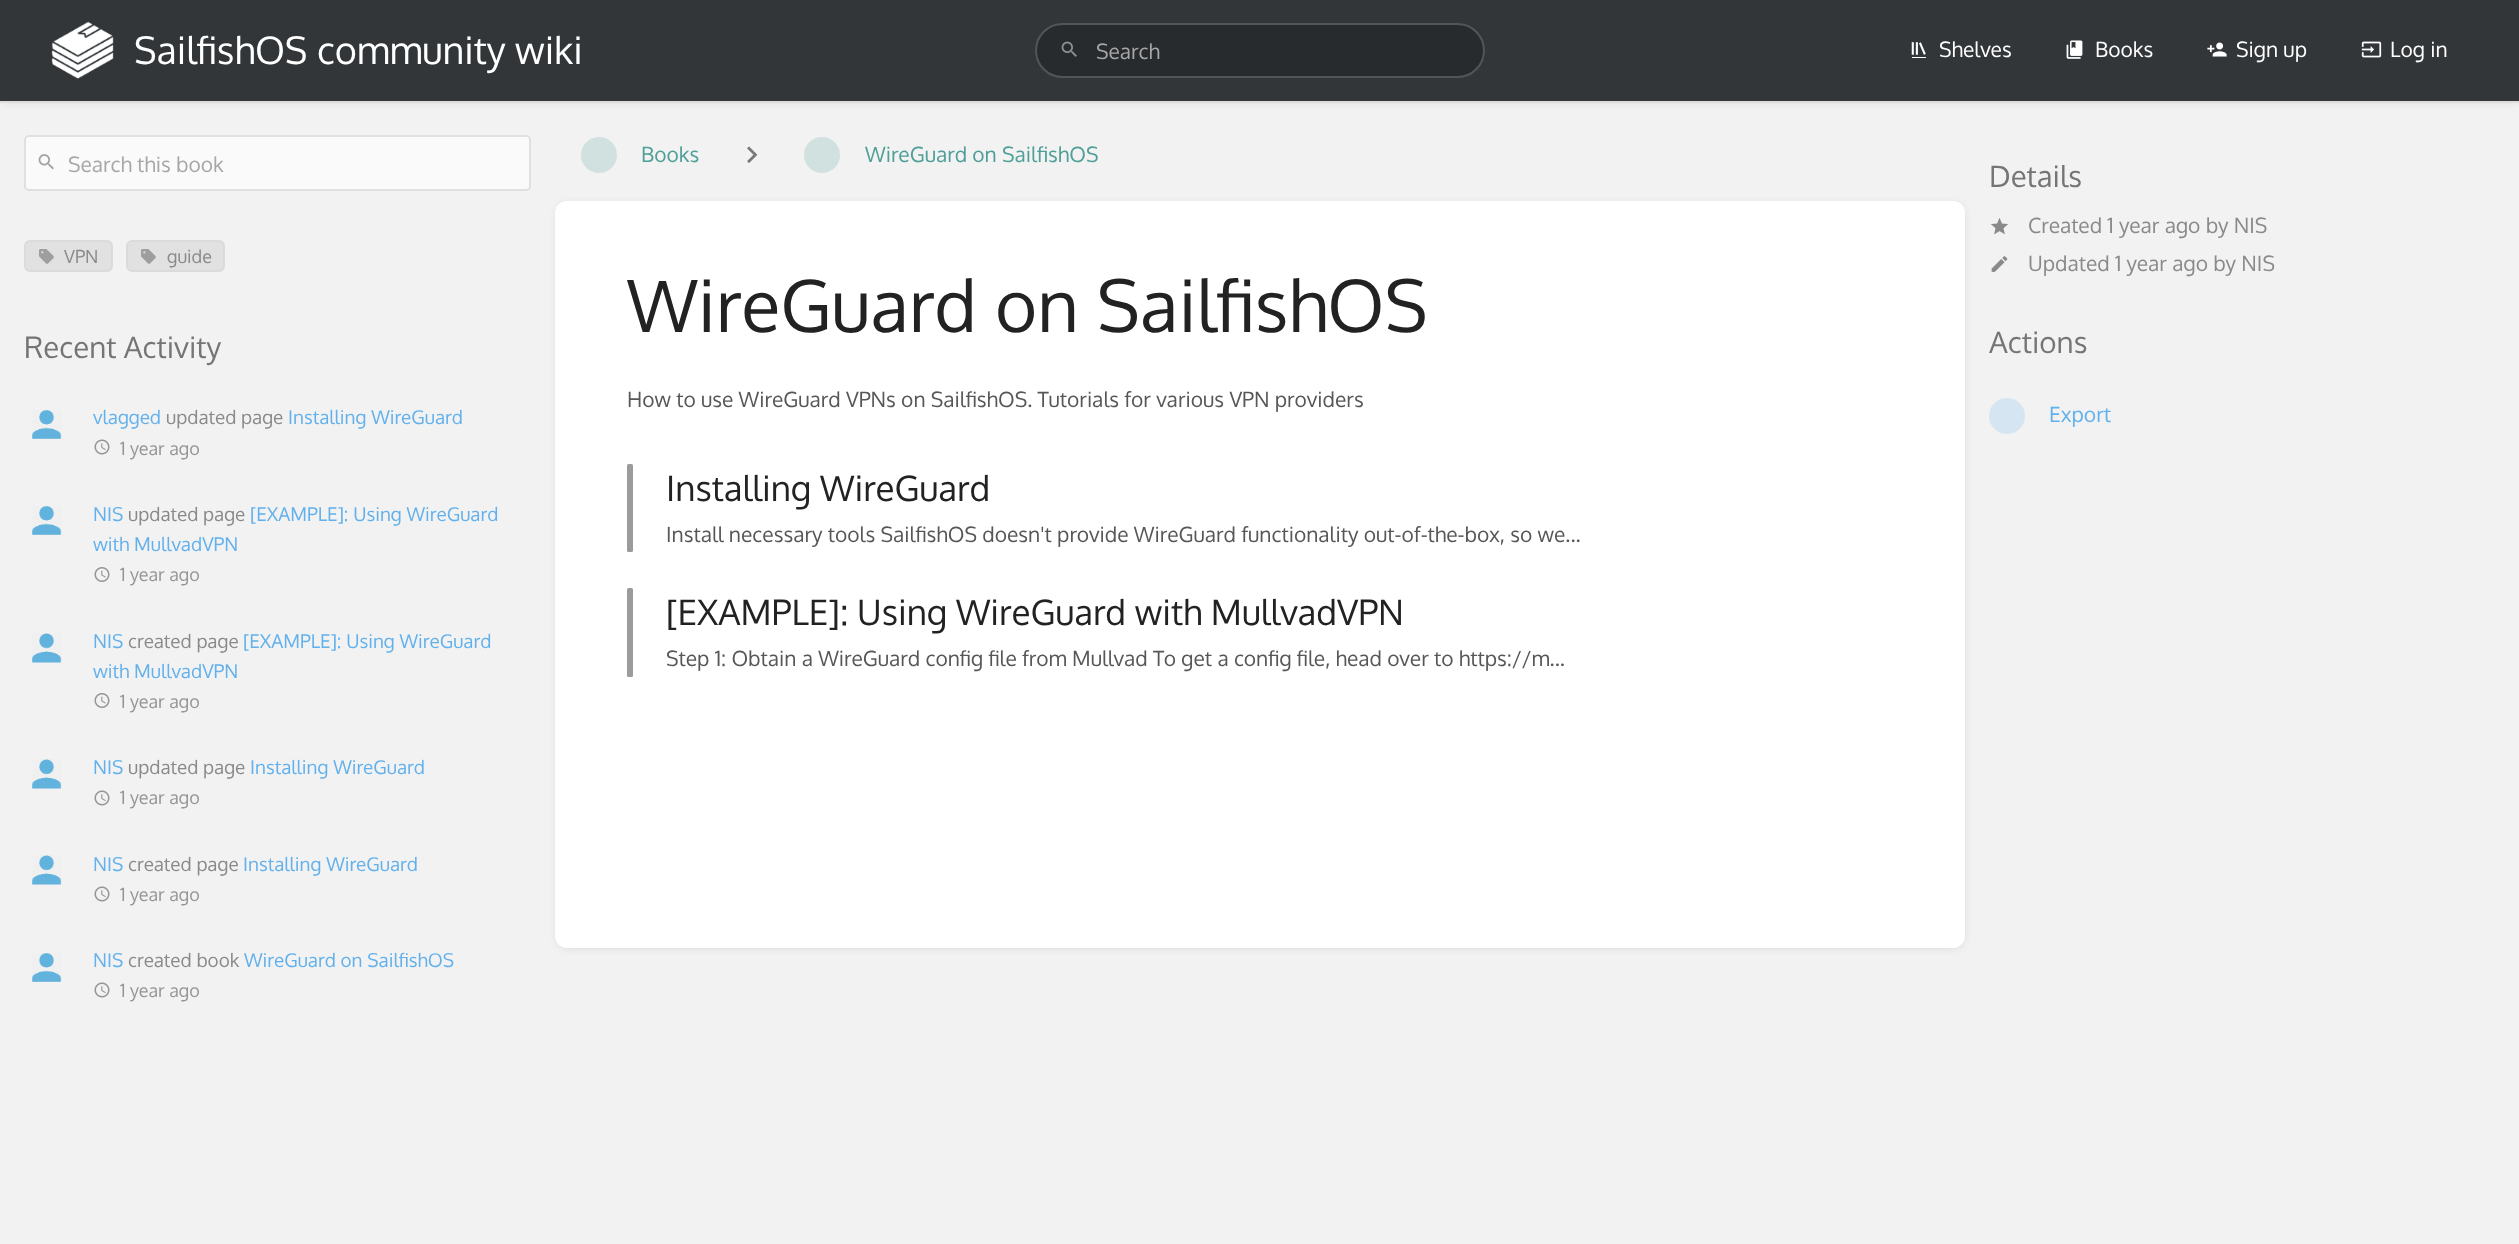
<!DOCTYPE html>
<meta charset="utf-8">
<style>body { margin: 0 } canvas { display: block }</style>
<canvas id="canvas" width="2519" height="1244"></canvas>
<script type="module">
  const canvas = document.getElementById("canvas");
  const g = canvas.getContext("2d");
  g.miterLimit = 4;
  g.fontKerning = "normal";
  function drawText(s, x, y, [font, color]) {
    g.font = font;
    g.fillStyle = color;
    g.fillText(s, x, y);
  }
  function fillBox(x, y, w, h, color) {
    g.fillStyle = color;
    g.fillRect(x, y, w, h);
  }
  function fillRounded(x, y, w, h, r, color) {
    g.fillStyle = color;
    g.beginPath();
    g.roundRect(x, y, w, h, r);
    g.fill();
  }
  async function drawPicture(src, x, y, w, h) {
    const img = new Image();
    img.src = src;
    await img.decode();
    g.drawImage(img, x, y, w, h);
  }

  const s1 = ["37.75px Oxygen", "#FFFFFF"];
  const s2 = ["21px Oxygen", "#A7A7A7"];
  const s3 = ["21px Oxygen", "#FFFFFF"];
  const s4 = ["21px Oxygen", "#4E9F97"];
  const s5 = ["72px Oxygen", "#222222"];
  const s6 = ["21px Oxygen", "#575757"];
  const s7 = ["35px Oxygen", "#222222"];
  const s8 = ["18px Oxygen", "#8A8A8A"];
  const s9 = ["29.5px Oxygen", "#757575"];
  const s10 = ["18.9px Oxygen", "#62B1EC"];
  const s11 = ["18.9px Oxygen", "#8A8A8A"];
  const s12 = ["18px Oxygen", "#959595"];
  const s13 = ["21px Oxygen", "#8A8A8A"];
  const s14 = ["21px Oxygen", "#62B1EC"];

  fillBox(0, 0, 2519, 1244, "#F2F2F2");
  g.fillStyle = "rgba(0, 0, 0, 0.1)";
  g.filter = "blur(4.5px)";
  g.beginPath();
  g.rect(2, 3, 2517, 99);
  g.fill();
  g.filter = "none";
  fillBox(0, 0, 2519, 101, "#323639");
  fillBox(0, 101, 2519, 2, "#DDDDDD");
  await drawPicture("pic1.png", 51, 21, 63, 58);
  drawText("SailfishOS community wiki", 134, 64, s1);
  fillRounded(1035, 23, 450, 55, 27.5, "#282B2E");
  g.beginPath();
  g.roundRect(1036, 24, 448, 53, 26.5);
  g.strokeStyle = "rgba(255, 255, 255, 0.2)";
  g.lineWidth = 2;
  g.stroke();
  await drawPicture("pic2.png", 1061, 41, 16, 16);
  drawText("Search", 1096, 59, s2);
  await drawPicture("pic3.png", 1911, 42, 15, 16);
  drawText("Shelves", 1939, 57, s3);
  await drawPicture("pic4.png", 2066, 40, 17, 19);
  drawText("Books", 2095, 57, s3);
  await drawPicture("pic5.png", 2207, 42, 20, 15);
  drawText("Sign up", 2236, 57, s3);
  await drawPicture("pic6.png", 2361, 41, 21, 17);
  drawText("Log in", 2390, 57, s3);
  g.fillStyle = "#D1E1E0";
  g.beginPath();
  g.arc(599, 155, 18, 0, Math.PI * 2);
  g.fill();
  drawText("Books", 641, 162, s4);
  await drawPicture("pic7.png", 747, 146, 11, 17);
  g.fillStyle = "#D1E1E0";
  g.beginPath();
  g.arc(822, 155, 18, 0, Math.PI * 2);
  g.fill();
  drawText("WireGuard on SailfishOS", 865, 162, s4);
  g.fillStyle = "rgba(0, 0, 0, 0.1)";
  g.filter = "blur(4.5px)";
  g.beginPath();
  g.roundRect(557, 204, 1407, 744, 11);
  g.fill();
  g.filter = "none";
  fillRounded(555, 201, 1410, 747, 12, "#FFFFFF");
  drawText("WireGuard on SailfishOS", 627, 332, s5);
  drawText("How to use WireGuard VPNs on SailfishOS. Tutorials for various VPN providers", 627, 407, s6);
  fillRounded(627, 464, 6, 88, 1.5, "#999B9C");
  drawText("Installing WireGuard", 666, 501, s7);
  drawText("Install necessary tools SailfishOS doesn't provide WireGuard functionality out-of-the-box, so we...", 666, 542, s6);
  fillRounded(627, 588, 6, 89, 1.5, "#999B9C");
  drawText("[EXAMPLE]: Using WireGuard with MullvadVPN", 666, 625, s7);
  drawText("Step 1: Obtain a WireGuard config file from Mullvad To get a config file, head over to https://m...", 666, 666, s6);
  g.fillStyle = "#FAFAFA";
  g.beginPath();
  g.roundRect(25, 136, 505, 54, 4);
  g.fill();
  g.strokeStyle = "#E0E0E0";
  g.stroke();
  await drawPicture("pic8.png", 38, 154, 16, 16);
  drawText("Search this book", 68, 172, s2);
  g.fillStyle = "#E1E1E1";
  g.beginPath();
  g.roundRect(25, 241, 87, 30, 5);
  g.fill();
  g.strokeStyle = "#DBDBDB";
  g.stroke();
  await drawPicture("pic9.png", 39, 249, 15, 15);
  drawText("VPN", 64, 263, s8);
  g.fillStyle = "#E1E1E1";
  g.beginPath();
  g.roundRect(127, 241, 97, 30, 5);
  g.fill();
  g.stroke();
  await drawPicture("pic9.png", 141, 249, 15, 15);
  drawText("guide", 167, 263, s8);
  drawText("Recent Activity", 24, 358, s9);
  await drawPicture("pic10.png", 32, 410, 30, 29);
  drawText("vlagged", 93, 424, s10);
  drawText("updated page", 166, 424, s11);
  drawText("Installing WireGuard", 288, 424, s10);
  await drawPicture("pic11.png", 94, 439, 16, 16);
  drawText("1 year ago", 120, 455, s12);
  await drawPicture("pic10.png", 32, 506, 30, 29);
  drawText("NIS", 93, 521, s10);
  drawText("updated page", 128, 521, s11);
  drawText("[EXAMPLE]: Using WireGuard", 250, 521, s10);
  drawText("with MullvadVPN", 93, 551, s10);
  await drawPicture("pic12.png", 94, 567, 16, 15);
  drawText("1 year ago", 120, 581, s12);
  await drawPicture("pic13.png", 32, 633, 30, 30);
  drawText("NIS", 93, 648, s10);
  drawText("created page", 128, 648, s11);
  drawText("[EXAMPLE]: Using WireGuard", 243, 648, s10);
  drawText("with MullvadVPN", 93, 678, s10);
  await drawPicture("pic12.png", 94, 693, 16, 15);
  drawText("1 year ago", 120, 708, s12);
  await drawPicture("pic13.png", 32, 759, 30, 30);
  drawText("NIS", 93, 774, s10);
  drawText("updated page", 128, 774, s11);
  drawText("Installing WireGuard", 250, 774, s10);
  await drawPicture("pic11.png", 94, 790, 16, 16);
  drawText("1 year ago", 120, 804, s12);
  await drawPicture("pic13.png", 32, 855, 30, 30);
  drawText("NIS", 93, 871, s10);
  drawText("created page", 128, 871, s11);
  drawText("Installing WireGuard", 243, 871, s10);
  await drawPicture("pic11.png", 94, 886, 16, 16);
  drawText("1 year ago", 120, 901, s12);
  await drawPicture("pic10.png", 32, 953, 30, 29);
  drawText("NIS", 93, 967, s10);
  drawText("created book", 128, 967, s11);
  drawText("WireGuard on SailfishOS", 244, 967, s10);
  await drawPicture("pic11.png", 94, 982, 16, 16);
  drawText("1 year ago", 120, 997, s12);
  drawText("Details", 1989, 187, s9);
  await drawPicture("pic14.png", 1991, 218, 17, 17);
  drawText("Created 1 year ago by NIS", 2028, 233, s13);
  await drawPicture("pic15.png", 1991, 256, 17, 16);
  drawText("Updated 1 year ago by NIS", 2028, 271, s13);
  drawText("Actions", 1989, 353, s9);
  g.fillStyle = "#D5E5F1";
  g.beginPath();
  g.arc(2007, 416, 18, 0, Math.PI * 2);
  g.fill();
  drawText("Export", 2049, 422, s14);
</script>
